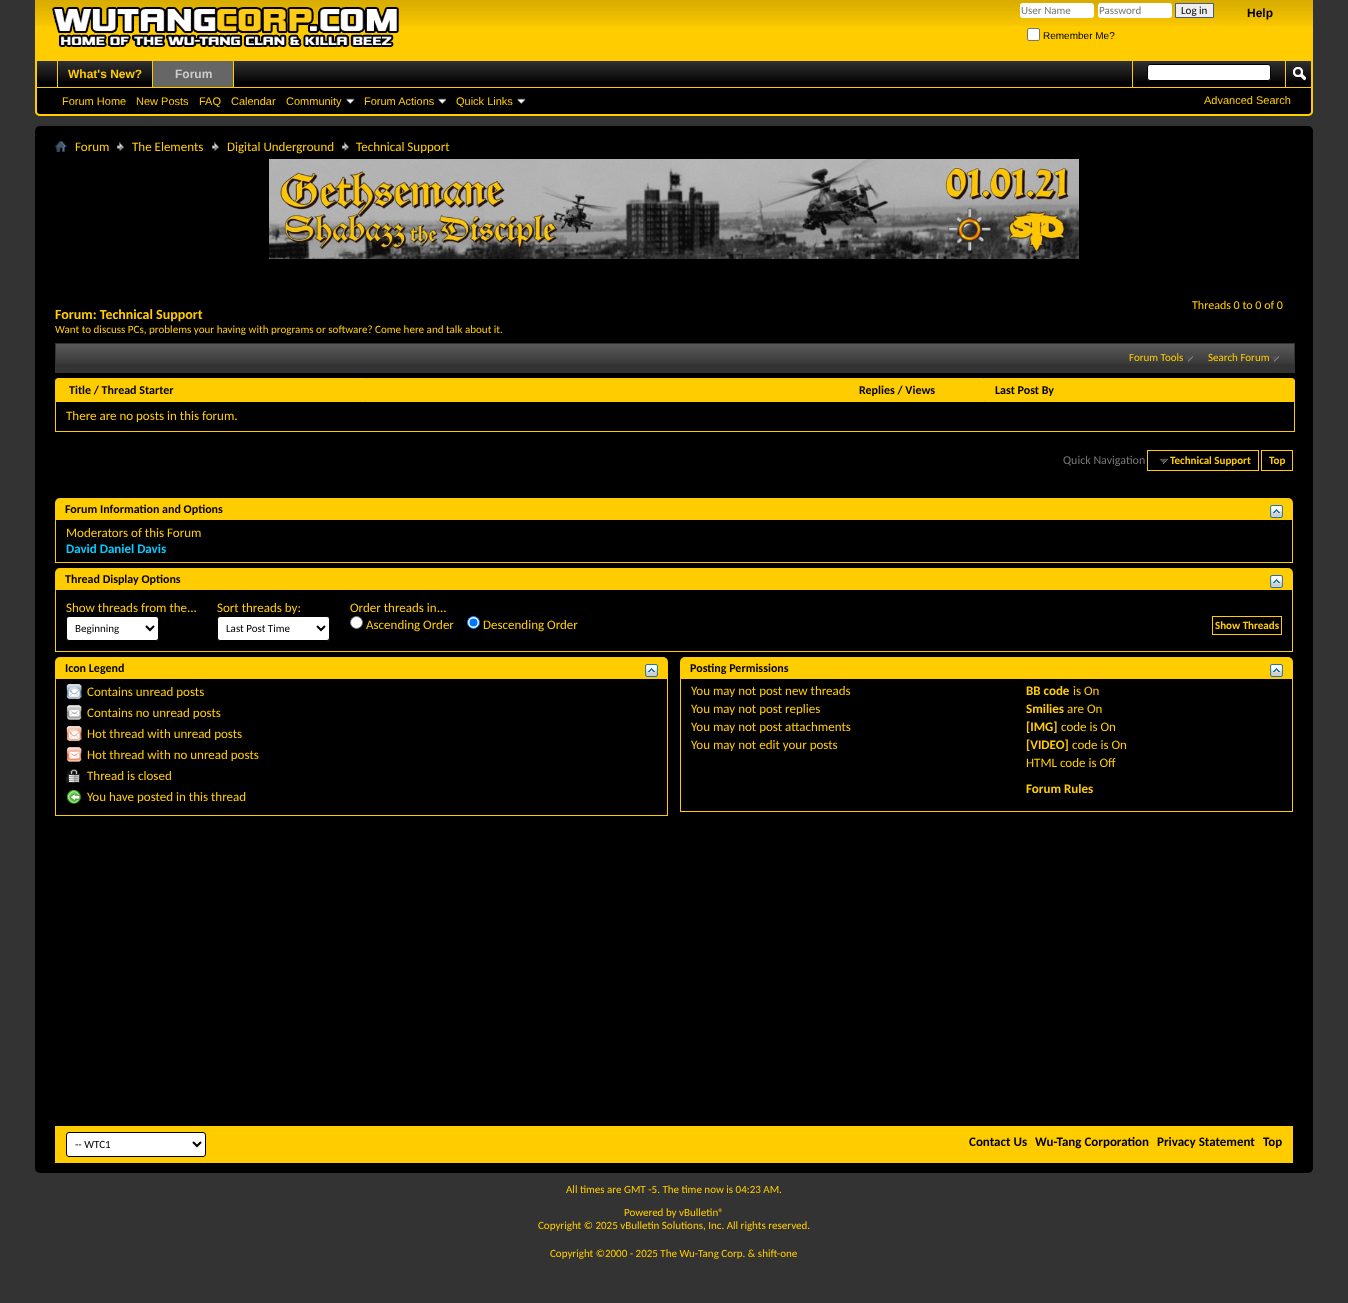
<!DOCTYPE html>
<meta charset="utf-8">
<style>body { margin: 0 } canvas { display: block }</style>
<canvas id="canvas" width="1348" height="1303"></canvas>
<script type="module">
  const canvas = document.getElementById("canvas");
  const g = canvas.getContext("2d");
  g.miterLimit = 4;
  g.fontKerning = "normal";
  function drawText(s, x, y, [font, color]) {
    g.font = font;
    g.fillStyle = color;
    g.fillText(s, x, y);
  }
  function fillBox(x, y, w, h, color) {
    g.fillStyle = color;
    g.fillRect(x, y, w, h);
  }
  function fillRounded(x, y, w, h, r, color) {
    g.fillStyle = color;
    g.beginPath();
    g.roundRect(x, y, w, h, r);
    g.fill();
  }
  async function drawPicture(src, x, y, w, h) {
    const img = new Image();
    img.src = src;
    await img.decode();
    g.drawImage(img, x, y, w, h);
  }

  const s1 = ["11px Carlito", "#777777"];
  const s2 = ["11px Carlito", "#000000"];
  const s3 = ["10px Liberation Sans", "#000000"];
  const s4 = ["bold 12px Liberation Sans", "#000000"];
  const s5 = ["bold 12px Liberation Sans", "#FFCC00"];
  const s6 = ["bold 12px Liberation Sans", "#CCCCCC"];
  const s7 = ["11px Liberation Sans", "#FFCC00"];
  const s8 = ["13px Carlito", "#FFCC00"];
  const s9 = ["12px Carlito", "#FFCC00"];
  const s10 = ["bold 14px Carlito", "#FFCC00"];
  const s11 = ["11.05px Carlito", "#FFCC00"];
  const s12 = ["11px Carlito", "#FFCC00"];
  const s13 = ["bold 12px Carlito", "#000000"];
  const s14 = ["12px Carlito", "#777777"];
  const s15 = ["bold 11px Carlito", "#FFCC00"];
  const s16 = ["bold 13px Carlito", "#00CCFF"];
  const s17 = ["bold 13px Carlito", "#FFCC00"];
  const s18 = ["bold 13px Carlito", "#000000"];

  fillBox(0, 0, 1348, 1303, "#333333");
  g.fillStyle = "#FFCC00";
  g.beginPath();
  g.roundRect(35, 0, 1278, 116, [0, 0, 5, 5]);
  g.fill();
  await drawPicture("pic1.png", 35, 0, 1278, 26);
  await drawPicture("pic2.png", 52, 7, 347, 40);
  fillRounded(1020, 3, 74, 15, 3, "#FFFFFF");
  drawText("User Name", 1021, 14, s1);
  fillRounded(1098, 3, 74, 15, 3, "#FFFFFF");
  drawText("Password", 1099, 14, s1);
  g.fillStyle = "#EFEFEF";
  g.beginPath();
  g.rect(1175.5, 3.5, 38, 14);
  g.fill();
  g.strokeStyle = "#415D8D";
  g.stroke();
  drawText("Log in", 1181, 14, s2);
  g.fillStyle = "#FFFFFF";
  g.beginPath();
  g.roundRect(1027.5, 28.5, 12, 12, 1.5);
  g.fill();
  g.strokeStyle = "#767676";
  g.stroke();
  drawText("Remember Me?", 1043, 39, s3);
  drawText("Help", 1247, 17, s4);
  g.beginPath();
  g.roundRect(36, 60, 1276, 55, [0, 0, 4, 4]);
  g.fill();
  g.strokeStyle = "#FFCC00";
  g.lineWidth = 2;
  g.stroke();
  await drawPicture("pic3.png", 37, 61, 1274, 20);
  fillBox(152, 61, 1, 26, "#FFCC00");
  fillBox(57, 61, 1, 26, "#FFCC00");
  fillBox(58, 61, 94, 20, "#000000");
  await drawPicture("pic4.png", 58, 61, 94, 20);
  drawText("What's New?", 68, 78, s5);
  fillBox(233, 61, 1, 26, "#FFCC00");
  fillBox(153, 61, 80, 26, "#666666");
  drawText("Forum", 175, 78, s6);
  fillBox(37, 87, 1274, 1, "#FFCC00");
  drawText("Forum Home", 62, 105, s7);
  drawText("New Posts", 136, 105, s7);
  drawText("FAQ", 199, 105, s7);
  drawText("Calendar", 231, 105, s7);
  drawText("Community", 286, 105, s7);
  await drawPicture("pic5.png", 346, 98, 9, 6);
  drawText("Forum Actions", 364, 105, s7);
  await drawPicture("pic5.png", 438, 98, 9, 6);
  drawText("Quick Links", 456, 105, s7);
  await drawPicture("pic5.png", 517, 98, 9, 6);
  fillBox(1132, 61, 1, 26, "#FFCC00");
  g.fillStyle = "#FFFFFF";
  g.beginPath();
  g.roundRect(1147.5, 64.5, 123, 16, 2.5);
  g.fill();
  g.strokeStyle = "#000000";
  g.lineWidth = 1;
  g.stroke();
  fillBox(1285, 61, 1, 26, "#FFCC00");
  await drawPicture("pic6.png", 1293, 67, 13, 14);
  drawText("Advanced Search", 1204, 104, s7);
  fillRounded(35, 126, 1278, 1047, 5, "#000000");
  await drawPicture("pic7.png", 55, 140, 12, 12);
  await drawPicture("pic8.png", 117, 142, 7, 10);
  drawText("Forum", 75, 151, s8);
  await drawPicture("pic8.png", 212, 142, 7, 10);
  drawText("The Elements", 132, 151, s8);
  await drawPicture("pic8.png", 342, 142, 7, 10);
  drawText("Digital Underground", 227, 151, s8);
  drawText("Technical Support", 356, 151, s8);
  await drawPicture("pic9.png", 269, 159, 810, 100);
  drawText("Threads 0 to 0 of 0", 1192, 309, s9);
  drawText("Forum: Technical Support", 55, 319, s10);
  drawText("Want to discuss PCs, problems your having with programs or software? Come here and talk about it.", 55, 333, s11);
  fillBox(56, 344, 1238, 28, "#333333");
  await drawPicture("pic10.png", 56, 344, 1238, 20);
  g.strokeStyle = "#333333";
  g.strokeRect(55.5, 343.5, 1239, 29);
  await drawPicture("pic11.png", 1185, 356, 8, 6);
  drawText("Forum Tools", 1129, 361, s12);
  await drawPicture("pic11.png", 1271, 356, 8, 6);
  drawText("Search Forum", 1208, 361, s12);
  g.beginPath();
  g.roundRect(55.5, 378.5, 1239, 23, [2.5, 2.5, 0, 0]);
  g.fill();
  g.strokeStyle = "#FFCC00";
  g.stroke();
  drawText("Title / Thread Starter", 69, 394, s13);
  drawText("Replies / Views", 859, 394, s13);
  drawText("Last Post By", 995, 394, s13);
  fillBox(1294, 402, 1, 30, "#FFCC00");
  fillBox(55, 431, 1240, 1, "#FFCC00");
  fillBox(55, 402, 1, 30, "#FFCC00");
  drawText("There are no posts in this forum.", 66, 420, s8);
  drawText("Quick Navigation", 1063, 464, s14);
  g.strokeRect(1147.5, 450.5, 111, 20);
  await drawPicture("pic12.png", 1159, 458, 9, 6);
  drawText("Technical Support", 1170, 464, s15);
  g.strokeRect(1261.5, 450.5, 31, 20);
  drawText("Top", 1269, 464, s15);
  fillBox(1292, 520, 1, 43, "#FFCC00");
  fillBox(55, 562, 1238, 1, "#FFCC00");
  fillBox(55, 520, 1, 43, "#FFCC00");
  g.fillStyle = "#000000";
  g.filter = "blur(1px)";
  g.beginPath();
  g.roundRect(53, 498, 1238, 22, 5);
  g.fill();
  g.filter = "none";
  g.fillStyle = "#FFCC00";
  g.beginPath();
  g.roundRect(55, 498, 1238, 22, [5, 5, 0, 0]);
  g.fill();
  drawText("Forum Information and Options", 65, 513, s13);
  await drawPicture("pic13.png", 1270, 505, 13, 13);
  drawText("Moderators of this Forum", 66, 537, s8);
  drawText("David Daniel Davis", 66, 553, s16);
  fillBox(1292, 590, 1, 62, "#FFCC00");
  fillBox(55, 651, 1238, 1, "#FFCC00");
  fillBox(55, 590, 1, 62, "#FFCC00");
  g.fillStyle = "#000000";
  g.filter = "blur(1px)";
  g.beginPath();
  g.roundRect(53, 568, 1238, 22, 5);
  g.fill();
  g.filter = "none";
  g.fillStyle = "#FFCC00";
  g.beginPath();
  g.roundRect(55, 568, 1238, 22, [5, 5, 0, 0]);
  g.fill();
  drawText("Thread Display Options", 65, 583, s13);
  await drawPicture("pic13.png", 1270, 575, 13, 13);
  drawText("Show threads from the...", 66, 612, s8);
  g.fillStyle = "#FFFFFF";
  g.beginPath();
  g.roundRect(66.5, 616.5, 92, 24, 2.5);
  g.fill();
  g.strokeStyle = "#000000";
  g.stroke();
  g.beginPath();
  g.moveTo(146, 626);
  g.lineTo(150, 630);
  g.lineTo(154, 626);
  g.lineWidth = 2;
  g.stroke();
  drawText("Beginning", 75, 632, s2);
  drawText("Sort threads by:", 217, 612, s8);
  g.fillStyle = "#FFFFFF";
  g.beginPath();
  g.roundRect(217.5, 616.5, 112, 24, 2.5);
  g.fill();
  g.lineWidth = 1;
  g.stroke();
  g.beginPath();
  g.moveTo(317, 626);
  g.lineTo(321, 630);
  g.lineTo(325, 626);
  g.lineWidth = 2;
  g.stroke();
  drawText("Last Post Time", 226, 632, s2);
  drawText("Order threads in...", 350, 612, s8);
  g.fillStyle = "#FFFFFF";
  g.beginPath();
  g.arc(356.5, 622.5, 6, 0, Math.PI * 2);
  g.fill();
  g.strokeStyle = "#767676";
  g.lineWidth = 1;
  g.stroke();
  drawText("Ascending Order", 366, 629, s8);
  g.fillStyle = "#FFFFFF";
  g.beginPath();
  g.arc(473.5, 622.5, 6, 0, Math.PI * 2);
  g.fill();
  g.strokeStyle = "#0075FF";
  g.stroke();
  g.fillStyle = "#0075FF";
  g.beginPath();
  g.arc(473.5, 622.5, 4, 0, Math.PI * 2);
  g.fill();
  drawText("Descending Order", 483, 629, s8);
  g.strokeStyle = "#FFCC00";
  g.strokeRect(1212.5, 616.5, 69, 18);
  drawText("Show Threads", 1215, 629, s15);
  fillBox(667, 679, 1, 137, "#FFCC00");
  fillBox(55, 815, 613, 1, "#FFCC00");
  fillBox(55, 679, 1, 137, "#FFCC00");
  g.fillStyle = "#000000";
  g.filter = "blur(1px)";
  g.beginPath();
  g.roundRect(53, 657, 613, 22, 5);
  g.fill();
  g.filter = "none";
  g.fillStyle = "#FFCC00";
  g.beginPath();
  g.roundRect(55, 657, 613, 22, [5, 5, 0, 0]);
  g.fill();
  drawText("Icon Legend", 65, 672, s13);
  await drawPicture("pic13.png", 645, 664, 13, 13);
  await drawPicture("pic14.png", 66, 684, 16, 16);
  drawText("Contains unread posts", 87, 696, s8);
  await drawPicture("pic15.png", 66, 705, 16, 15);
  drawText("Contains no unread posts", 87, 717, s8);
  await drawPicture("pic16.png", 66, 726, 16, 16);
  drawText("Hot thread with unread posts", 87, 738, s8);
  await drawPicture("pic17.png", 66, 747, 16, 15);
  drawText("Hot thread with no unread posts", 87, 759, s8);
  await drawPicture("pic18.png", 66, 769, 14, 14);
  drawText("Thread is closed", 87, 780, s8);
  await drawPicture("pic19.png", 67, 790, 14, 14);
  drawText("You have posted in this thread", 87, 801, s8);
  fillBox(1292, 679, 1, 133, "#FFCC00");
  fillBox(680, 811, 613, 1, "#FFCC00");
  fillBox(680, 679, 1, 133, "#FFCC00");
  g.fillStyle = "#000000";
  g.filter = "blur(1px)";
  g.beginPath();
  g.roundRect(678, 657, 613, 22, 5);
  g.fill();
  g.filter = "none";
  g.fillStyle = "#FFCC00";
  g.beginPath();
  g.roundRect(680, 657, 613, 22, [5, 5, 0, 0]);
  g.fill();
  drawText("Posting Permissions", 690, 672, s13);
  await drawPicture("pic13.png", 1270, 664, 13, 13);
  drawText("You may not post new threads", 691, 695, s8);
  drawText("You may not post replies", 691, 713, s8);
  drawText("You may not post attachments", 691, 731, s8);
  drawText("You may not edit your posts", 691, 749, s8);
  drawText("BB code", 1026, 695, s17);
  drawText("is On", 1073, 695, s8);
  drawText("Smilies", 1026, 713, s17);
  drawText("are On", 1067, 713, s8);
  drawText("[IMG]", 1026, 731, s17);
  drawText("code is On", 1061, 731, s8);
  drawText("[VIDEO]", 1026, 749, s17);
  drawText("code is On", 1072, 749, s8);
  drawText("HTML code is Off", 1026, 767, s8);
  drawText("Forum Rules", 1026, 793, s17);
  fillBox(55, 1126, 1238, 37, "#FFCC00");
  g.fillStyle = "#FFFFFF";
  g.beginPath();
  g.roundRect(66.5, 1132.5, 139, 24, 2.5);
  g.fill();
  g.strokeStyle = "#000000";
  g.stroke();
  g.beginPath();
  g.moveTo(193, 1142);
  g.lineTo(197, 1146);
  g.lineTo(201, 1142);
  g.lineWidth = 2;
  g.stroke();
  drawText("-- WTC1", 75, 1148, s2);
  drawText("Contact Us", 969, 1146, s18);
  drawText("Wu-Tang Corporation", 1035, 1146, s18);
  drawText("Privacy Statement", 1157, 1146, s18);
  drawText("Top", 1263, 1146, s18);
  drawText("All times are GMT -5. The time now is 04:23 AM.", 566, 1193, s12);
  drawText("Powered by vBulletin®", 624, 1216, s12);
  drawText("Copyright © 2025 vBulletin Solutions, Inc. All rights reserved.", 538, 1229, s12);
  drawText("Copyright ©2000 - 2025 The Wu-Tang Corp. & shift-one", 550, 1257, s12);
</script>
